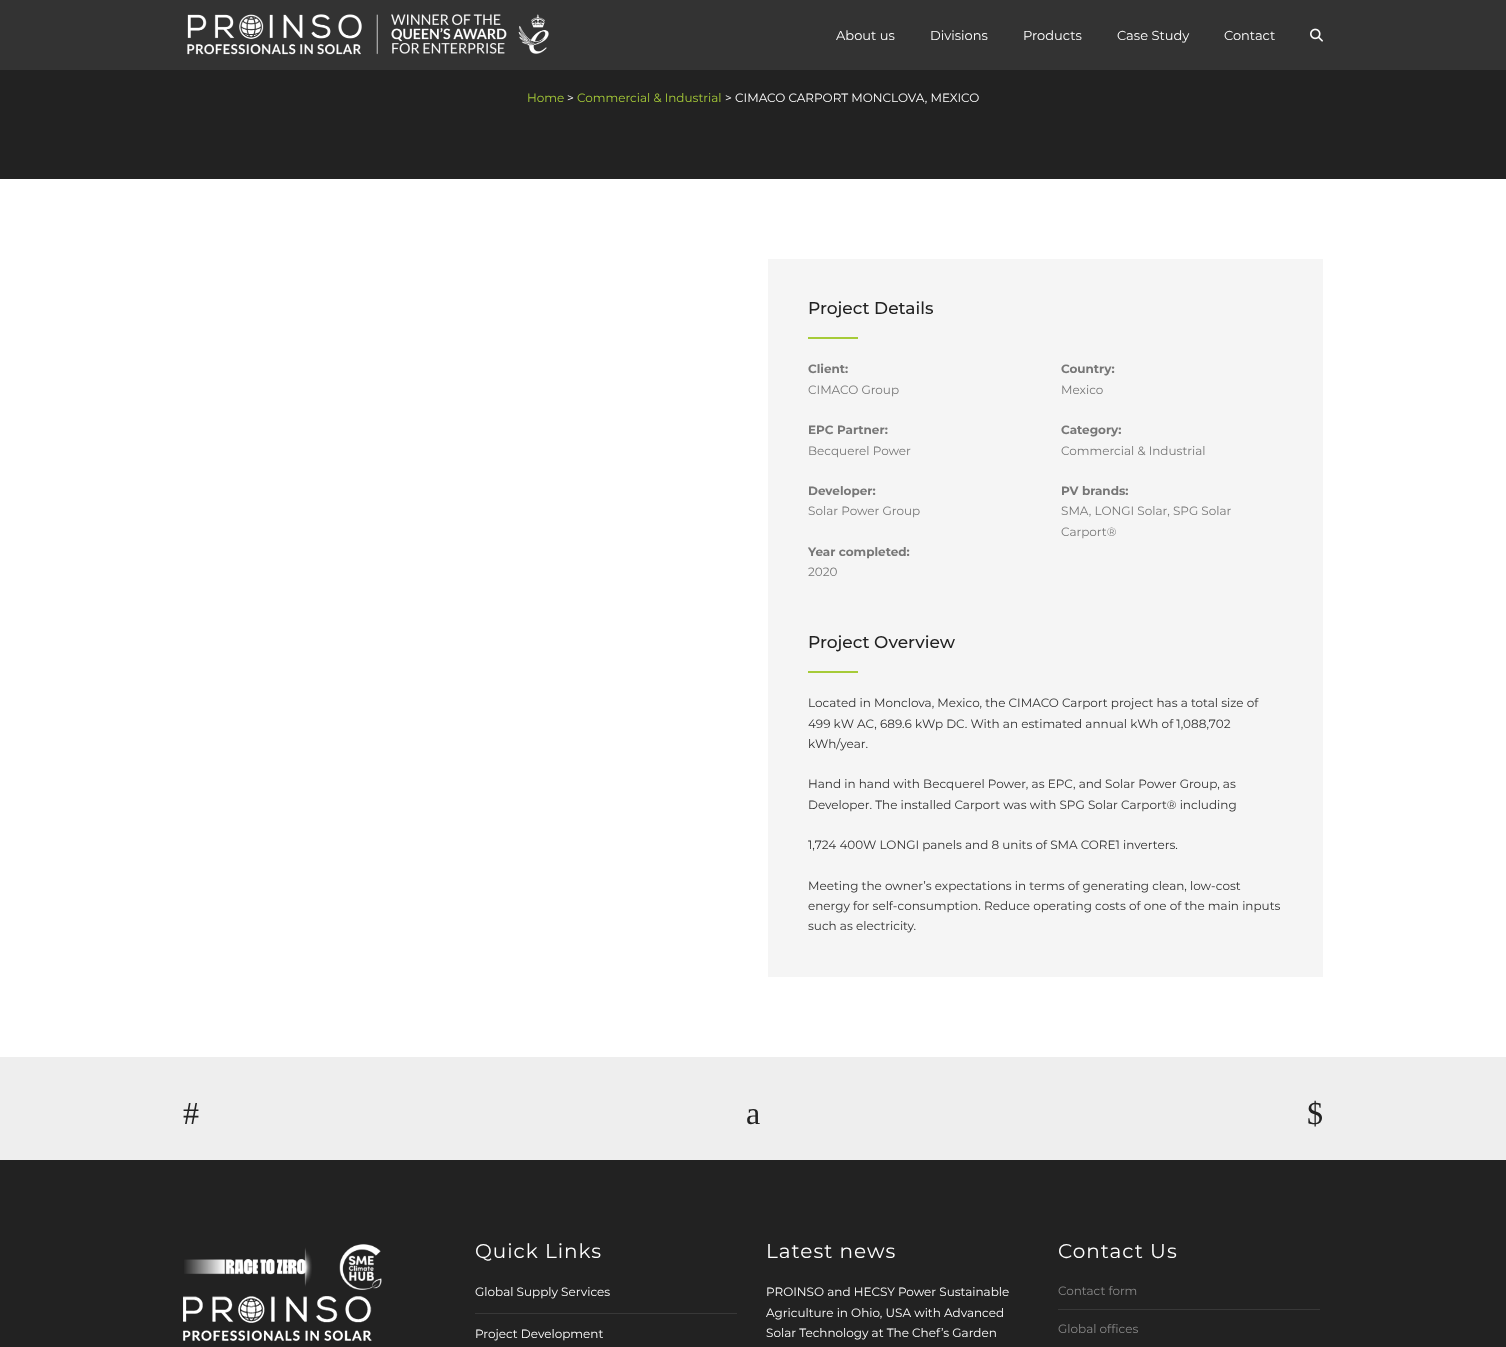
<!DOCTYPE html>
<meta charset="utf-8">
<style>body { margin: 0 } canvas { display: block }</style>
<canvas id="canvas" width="1506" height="1347"></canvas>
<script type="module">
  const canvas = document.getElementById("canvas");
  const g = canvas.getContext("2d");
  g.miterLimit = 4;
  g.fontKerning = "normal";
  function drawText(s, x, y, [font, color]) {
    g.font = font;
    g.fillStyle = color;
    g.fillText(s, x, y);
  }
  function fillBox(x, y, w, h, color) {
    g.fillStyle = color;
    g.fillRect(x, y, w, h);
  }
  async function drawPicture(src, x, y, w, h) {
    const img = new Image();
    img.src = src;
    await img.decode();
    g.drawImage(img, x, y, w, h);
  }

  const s1 = ["13px Montserrat", "#FFFFFF"];
  const s2 = ["12px Montserrat", "#A6CB38"];
  const s3 = ["12px Montserrat", "#FFFFFF"];
  const s4 = ["500 17px Montserrat", "#222222"];
  const s5 = ["bold 12px Montserrat", "#777777"];
  const s6 = ["12px Montserrat", "#777777"];
  const s7 = ["12px Montserrat", "#313131"];
  const s8 = ["32px Liberation Serif", "#222222"];
  const s9 = ["20px Montserrat", "#FFFFFF"];
  const s10 = ["12px Montserrat", "#888888"];

  fillBox(0, 0, 1506, 1347, "#222222");
  fillBox(0, 0, 1506, 70, "#333333");
  await drawPicture("pic1.png", 187, 14, 362, 41);
  drawText("About us", 836, 40, s1);
  drawText("Divisions", 930, 40, s1);
  drawText("Products", 1023, 40, s1);
  drawText("Case Study", 1117, 40, s1);
  drawText("Contact", 1224, 40, s1);
  await drawPicture("pic2.png", 1310, 28, 13, 14);
  drawText("Home", 527, 102, s2);
  drawText(">", 567, 102, s3);
  drawText("Commercial & Industrial", 577, 102, s2);
  drawText("> CIMACO CARPORT MONCLOVA, MEXICO", 725, 102, s3);
  fillBox(0, 179, 1506, 878, "#FFFFFF");
  fillBox(768, 259, 555, 718, "#F5F5F5");
  drawText("Project Details", 808, 314, s4);
  fillBox(808, 337, 50, 2, "#A6CB38");
  drawText("Client:", 808, 373, s5);
  drawText("CIMACO Group", 808, 394, s6);
  drawText("EPC Partner:", 808, 434, s5);
  drawText("Becquerel Power", 808, 455, s6);
  drawText("Developer:", 808, 495, s5);
  drawText("Solar Power Group", 808, 515, s6);
  drawText("Year completed:", 808, 556, s5);
  drawText("2020", 808, 576, s6);
  drawText("Country:", 1061, 373, s5);
  drawText("Mexico", 1061, 394, s6);
  drawText("Category:", 1061, 434, s5);
  drawText("Commercial & Industrial", 1061, 455, s6);
  drawText("PV brands:", 1061, 495, s5);
  drawText("SMA, LONGI Solar, SPG Solar", 1061, 515, s6);
  drawText("Carport®", 1061, 536, s6);
  drawText("Project Overview", 808, 648, s4);
  fillBox(808, 671, 50, 2, "#A6CB38");
  drawText("Located in Monclova, Mexico, the CIMACO Carport project has a total size of", 808, 707, s7);
  drawText("499 kW AC, 689.6 kWp DC. With an estimated annual kWh of 1,088,702", 808, 728, s7);
  drawText("kWh/year.", 808, 748, s7);
  drawText("Hand in hand with Becquerel Power, as EPC, and Solar Power Group, as", 808, 788, s7);
  drawText("Developer. The installed Carport was with SPG Solar Carport® including", 808, 809, s7);
  drawText("1,724 400W LONGI panels and 8 units of SMA CORE1 inverters.", 808, 849, s7);
  drawText("Meeting the owner’s expectations in terms of generating clean, low-cost", 808, 890, s7);
  drawText("energy for self-consumption. Reduce operating costs of one of the main inputs", 808, 910, s7);
  drawText("such as electricity.", 808, 930, s7);
  fillBox(0, 1057, 1506, 103, "#EEEEEE");
  drawText("#", 183, 1124, s8);
  drawText("$", 1307, 1124, s8);
  drawText("a", 746, 1124, s8);
  await drawPicture("pic3.png", 184, 1244, 198, 46);
  await drawPicture("pic4.png", 183, 1296, 189, 45);
  g.letterSpacing = "1px";
  drawText("Quick Links", 475, 1258, s9);
  fillBox(475, 1313, 262, 1, "#383838");
  g.letterSpacing = "0px";
  drawText("Global Supply Services", 475, 1296, s3);
  drawText("Project Development", 475, 1338, s3);
  g.letterSpacing = "1px";
  drawText("Latest news", 766, 1258, s9);
  g.letterSpacing = "0px";
  drawText("PROINSO and HECSY Power Sustainable", 766, 1296, s3);
  drawText("Agriculture in Ohio, USA with Advanced", 766, 1317, s3);
  drawText("Solar Technology at The Chef’s Garden", 766, 1337, s3);
  g.letterSpacing = "1px";
  drawText("Contact Us", 1058, 1258, s9);
  fillBox(1058, 1309, 262, 1, "#383838");
  g.letterSpacing = "0px";
  drawText("Contact form", 1058, 1295, s10);
  drawText("Global offices", 1058, 1333, s10);
</script>
